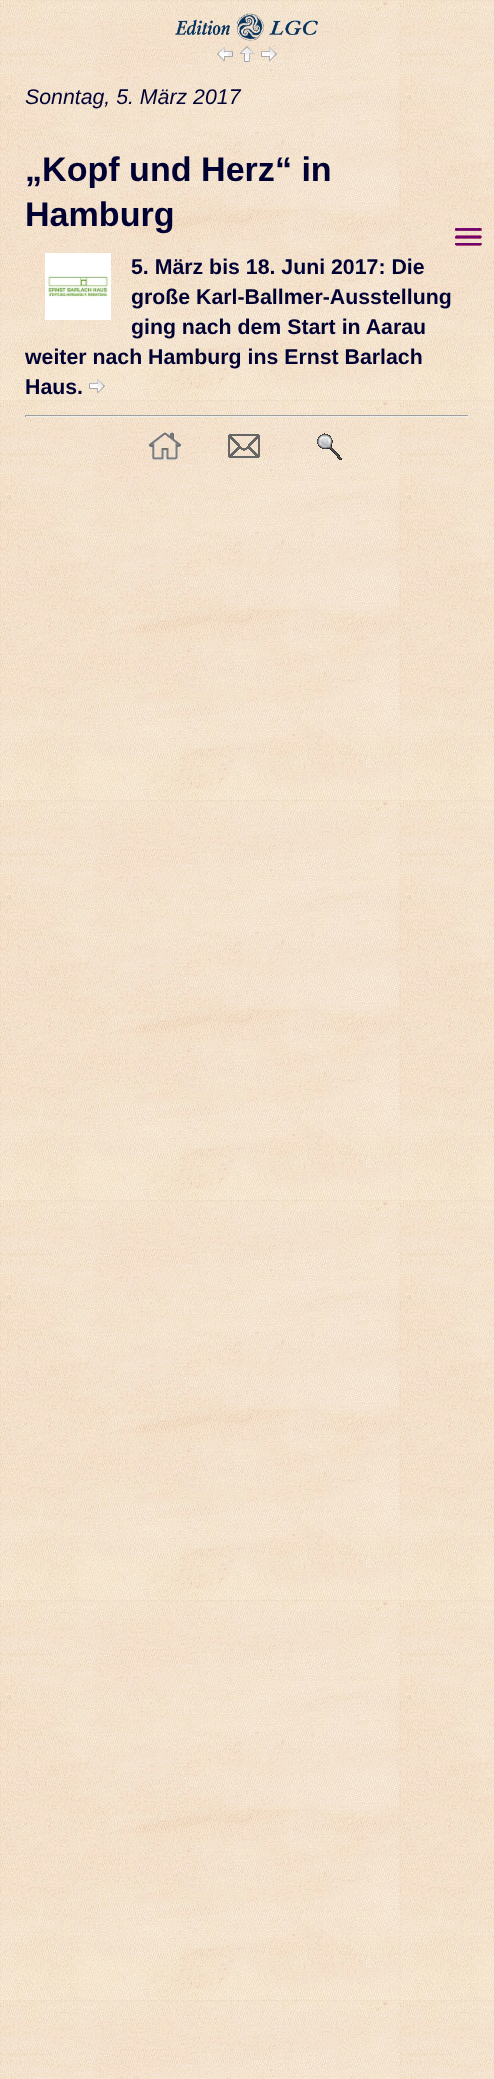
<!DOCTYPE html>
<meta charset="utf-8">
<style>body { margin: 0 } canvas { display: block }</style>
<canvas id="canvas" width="494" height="2079"></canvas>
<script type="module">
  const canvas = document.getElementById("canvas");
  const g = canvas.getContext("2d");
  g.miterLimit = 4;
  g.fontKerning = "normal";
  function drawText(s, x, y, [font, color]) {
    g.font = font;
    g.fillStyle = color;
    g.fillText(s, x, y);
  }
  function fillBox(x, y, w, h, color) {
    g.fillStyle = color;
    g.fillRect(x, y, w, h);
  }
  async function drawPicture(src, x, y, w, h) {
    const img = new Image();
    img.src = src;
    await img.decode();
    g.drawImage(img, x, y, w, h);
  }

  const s1 = ["italic 21.3px Liberation Sans", "#000033"];
  const s2 = ["bold 34.1px Liberation Sans", "#000033"];
  const s3 = ["bold 21.3px Liberation Sans", "#000033"];

  fillBox(0, 0, 494, 2079, "#FFFFFF");
  await drawPicture("pic1.png", 0, 0, 494, 2079);
  await drawPicture("pic2.png", 175, 13, 143, 28);
  await drawPicture("pic3.png", 217, 46, 16, 16);
  await drawPicture("pic4.png", 239, 46, 16, 16);
  await drawPicture("pic5.png", 261, 46, 16, 16);
  drawText("Sonntag, 5. März 2017", 25, 104, s1);
  drawText("„Kopf und Herz“ in", 25, 181, s2);
  drawText("Hamburg", 25, 226, s2);
  await drawPicture("pic6.png", 455, 228, 27, 18);
  await drawPicture("pic7.png", 45, 253, 66, 67);
  drawText("5. März bis 18. Juni 2017: Die", 131, 274, s3);
  drawText("große Karl-Ballmer-Ausstellung", 131, 304, s3);
  drawText("ging nach dem Start in Aarau", 131, 334, s3);
  drawText("weiter nach Hamburg ins Ernst Barlach", 25, 364, s3);
  drawText("Haus.", 25, 394, s3);
  await drawPicture("pic8.png", 89, 378, 16, 16);
  fillBox(25, 415, 444, 1, "#9F9F9F");
  fillBox(468, 415, 1, 2, "#EEEEEE");
  fillBox(25, 416, 444, 1, "#EEEEEE");
  fillBox(25, 415, 1, 2, "#9F9F9F");
  await drawPicture("pic9.png", 149, 432, 32, 28);
  await drawPicture("pic10.png", 228, 434, 32, 24);
  await drawPicture("pic11.png", 317, 433, 25, 27);
</script>
